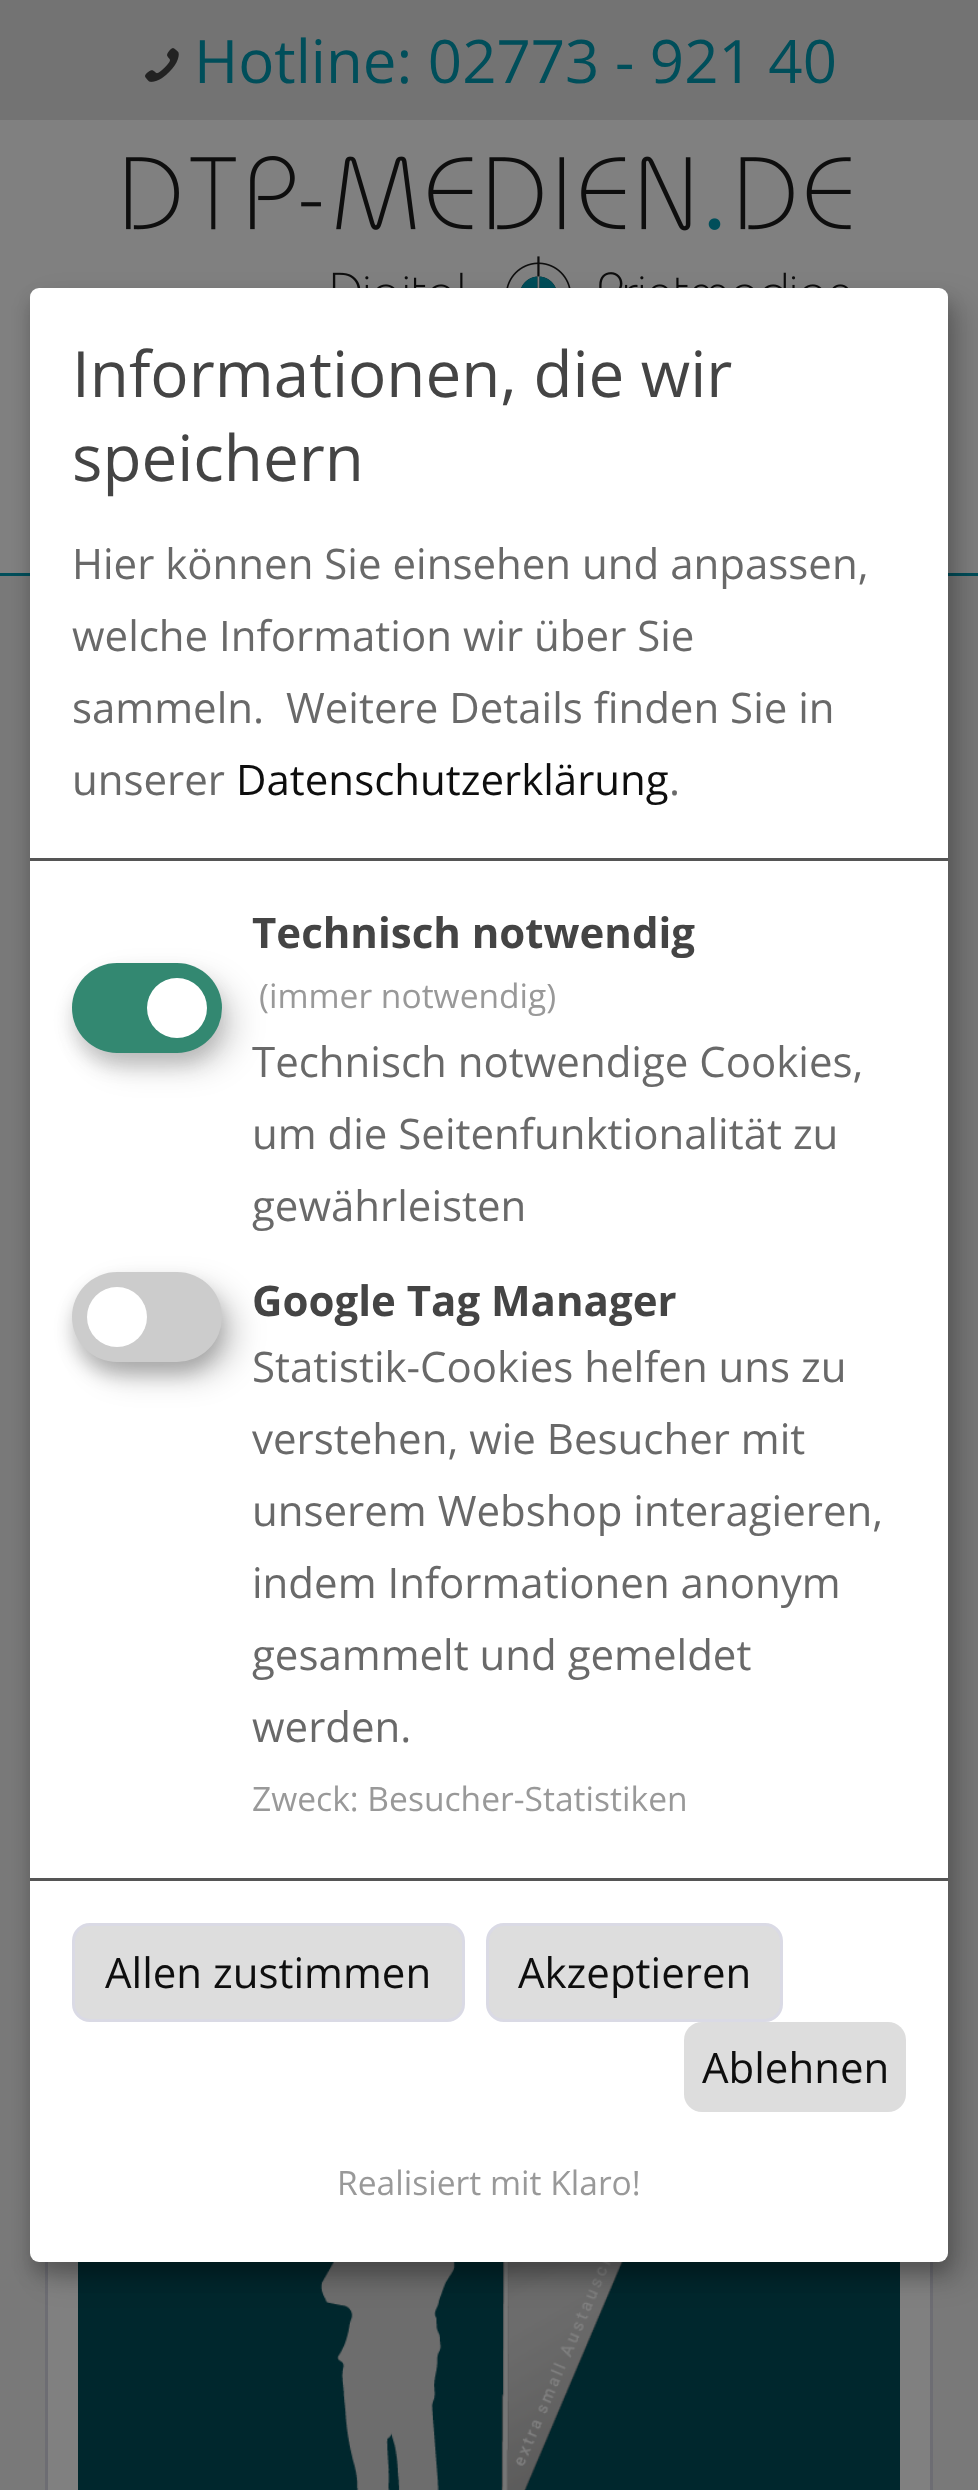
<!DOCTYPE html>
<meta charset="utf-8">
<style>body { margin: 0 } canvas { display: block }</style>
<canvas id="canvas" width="978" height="2490"></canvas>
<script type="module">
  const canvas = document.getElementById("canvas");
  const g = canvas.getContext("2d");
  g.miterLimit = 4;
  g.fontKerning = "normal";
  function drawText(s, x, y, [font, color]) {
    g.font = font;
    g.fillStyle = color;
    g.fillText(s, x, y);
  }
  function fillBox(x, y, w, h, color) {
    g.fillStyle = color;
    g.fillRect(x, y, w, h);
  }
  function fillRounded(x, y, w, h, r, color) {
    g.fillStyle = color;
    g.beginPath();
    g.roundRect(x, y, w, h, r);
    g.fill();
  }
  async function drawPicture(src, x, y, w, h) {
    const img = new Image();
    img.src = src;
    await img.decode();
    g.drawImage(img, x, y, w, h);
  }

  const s1 = ["60px Open Sans", "#004E5A"];
  const s2 = ["63.75px Open Sans", "#444444"];
  const s3 = ["42px Open Sans", "#696969"];
  const s4 = ["42px Open Sans", "#0E0E0E"];
  const s5 = ["bold 42px Open Sans", "#444444"];
  const s6 = ["33.6px Open Sans", "#999999"];

  fillBox(0, 0, 978, 2490, "#797979");
  fillBox(0, 120, 978, 453, "#808080");
  fillBox(0, 573, 978, 3, "#004E5A");
  fillBox(0, 0, 978, 120, "#737373");
  await drawPicture("pic1.png", 145, 48, 34, 34);
  drawText("Hotline: 02773 - 921 40", 194, 83, s1);
  await drawPicture("pic2.png", 126, 156, 725, 132);
  fillBox(48, 2262, 882, 228, "#808080");
  g.strokeStyle = "#6D6D73";
  g.lineWidth = 3;
  g.strokeRect(46.5, 2035.5, 885, 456);
  fillBox(78, 2262, 822, 228, "#00272D");
  await drawPicture("pic3.png", 320, 2262, 303, 228);
  g.fillStyle = "rgba(0, 0, 0, 0.19)";
  g.filter = "blur(15px)";
  g.beginPath();
  g.roundRect(45, 303, 918, 1974, 9);
  g.fill();
  g.filter = "none";
  g.fillStyle = "rgba(0, 0, 0, 0.2)";
  g.filter = "blur(9px)";
  g.beginPath();
  g.roundRect(30, 300, 918, 1974, 9);
  g.fill();
  g.filter = "none";
  fillRounded(30, 288, 918, 1974, 9, "#FFFFFF");
  fillBox(30, 858, 918, 3, "#555555");
  drawText("Informationen, die wir", 72, 397, s2);
  drawText("speichern", 72, 481, s2);
  drawText("Hier können Sie einsehen und anpassen,", 72, 579, s3);
  drawText("welche Information wir über Sie", 72, 651, s3);
  drawText("sammeln.", 72, 723, s3);
  drawText("Weitere Details finden Sie in", 286, 723, s3);
  drawText("unserer", 72, 795, s3);
  drawText("Datenschutzerklärung", 236, 795, s4);
  drawText(".", 669, 795, s3);
  g.fillStyle = "rgba(0, 0, 0, 0.15)";
  g.filter = "blur(15px)";
  g.beginPath();
  g.roundRect(87, 978, 150, 90, 45);
  g.fill();
  g.filter = "none";
  g.fillStyle = "rgba(51, 51, 51, 0.2)";
  g.filter = "blur(9px)";
  g.beginPath();
  g.roundRect(72, 975, 150, 90, 45);
  g.fill();
  g.filter = "none";
  fillRounded(72, 963, 150, 90, 45, "#338871");
  g.fillStyle = "#FFFFFF";
  g.beginPath();
  g.arc(177, 1008, 30, 0, Math.PI * 2);
  g.fill();
  drawText("Technisch notwendig", 252, 948, s5);
  drawText("(immer notwendig)", 259, 1008, s6);
  drawText("Technisch notwendige Cookies,", 252, 1077, s3);
  drawText("um die Seitenfunktionalität zu", 252, 1149, s3);
  drawText("gewährleisten", 252, 1221, s3);
  g.fillStyle = "rgba(0, 0, 0, 0.19)";
  g.filter = "blur(15px)";
  g.beginPath();
  g.roundRect(87, 1287, 150, 90, 45);
  g.fill();
  g.filter = "none";
  g.fillStyle = "rgba(0, 0, 0, 0.2)";
  g.filter = "blur(9px)";
  g.beginPath();
  g.roundRect(72, 1284, 150, 90, 45);
  g.fill();
  g.filter = "none";
  fillRounded(72, 1272, 150, 90, 45, "#CCCCCC");
  g.fillStyle = "#FFFFFF";
  g.beginPath();
  g.arc(117, 1317, 30, 0, Math.PI * 2);
  g.fill();
  drawText("Google Tag Manager", 252, 1316, s5);
  drawText("Statistik-Cookies helfen uns zu", 252, 1382, s3);
  drawText("verstehen, wie Besucher mit", 252, 1454, s3);
  drawText("unserem Webshop interagieren,", 252, 1526, s3);
  drawText("indem Informationen anonym", 252, 1598, s3);
  drawText("gesammelt und gemeldet", 252, 1670, s3);
  drawText("werden.", 252, 1742, s3);
  drawText("Zweck: Besucher-Statistiken", 252, 1811, s6);
  fillBox(30, 1878, 918, 3, "#555555");
  g.fillStyle = "#DDDDDD";
  g.beginPath();
  g.roundRect(73.5, 1924.5, 390, 96, 16.5);
  g.fill();
  g.strokeStyle = "#DADAE5";
  g.stroke();
  drawText("Allen zustimmen", 105, 1988, s4);
  g.fillStyle = "#DDDDDD";
  g.beginPath();
  g.roundRect(487.5, 1924.5, 294, 96, 16.5);
  g.fill();
  g.stroke();
  drawText("Akzeptieren", 518, 1988, s4);
  fillRounded(684, 2022, 222, 90, 18, "#DDDDDD");
  drawText("Ablehnen", 702, 2083, s4);
  drawText("Realisiert mit Klaro!", 337, 2195, s6);
</script>
